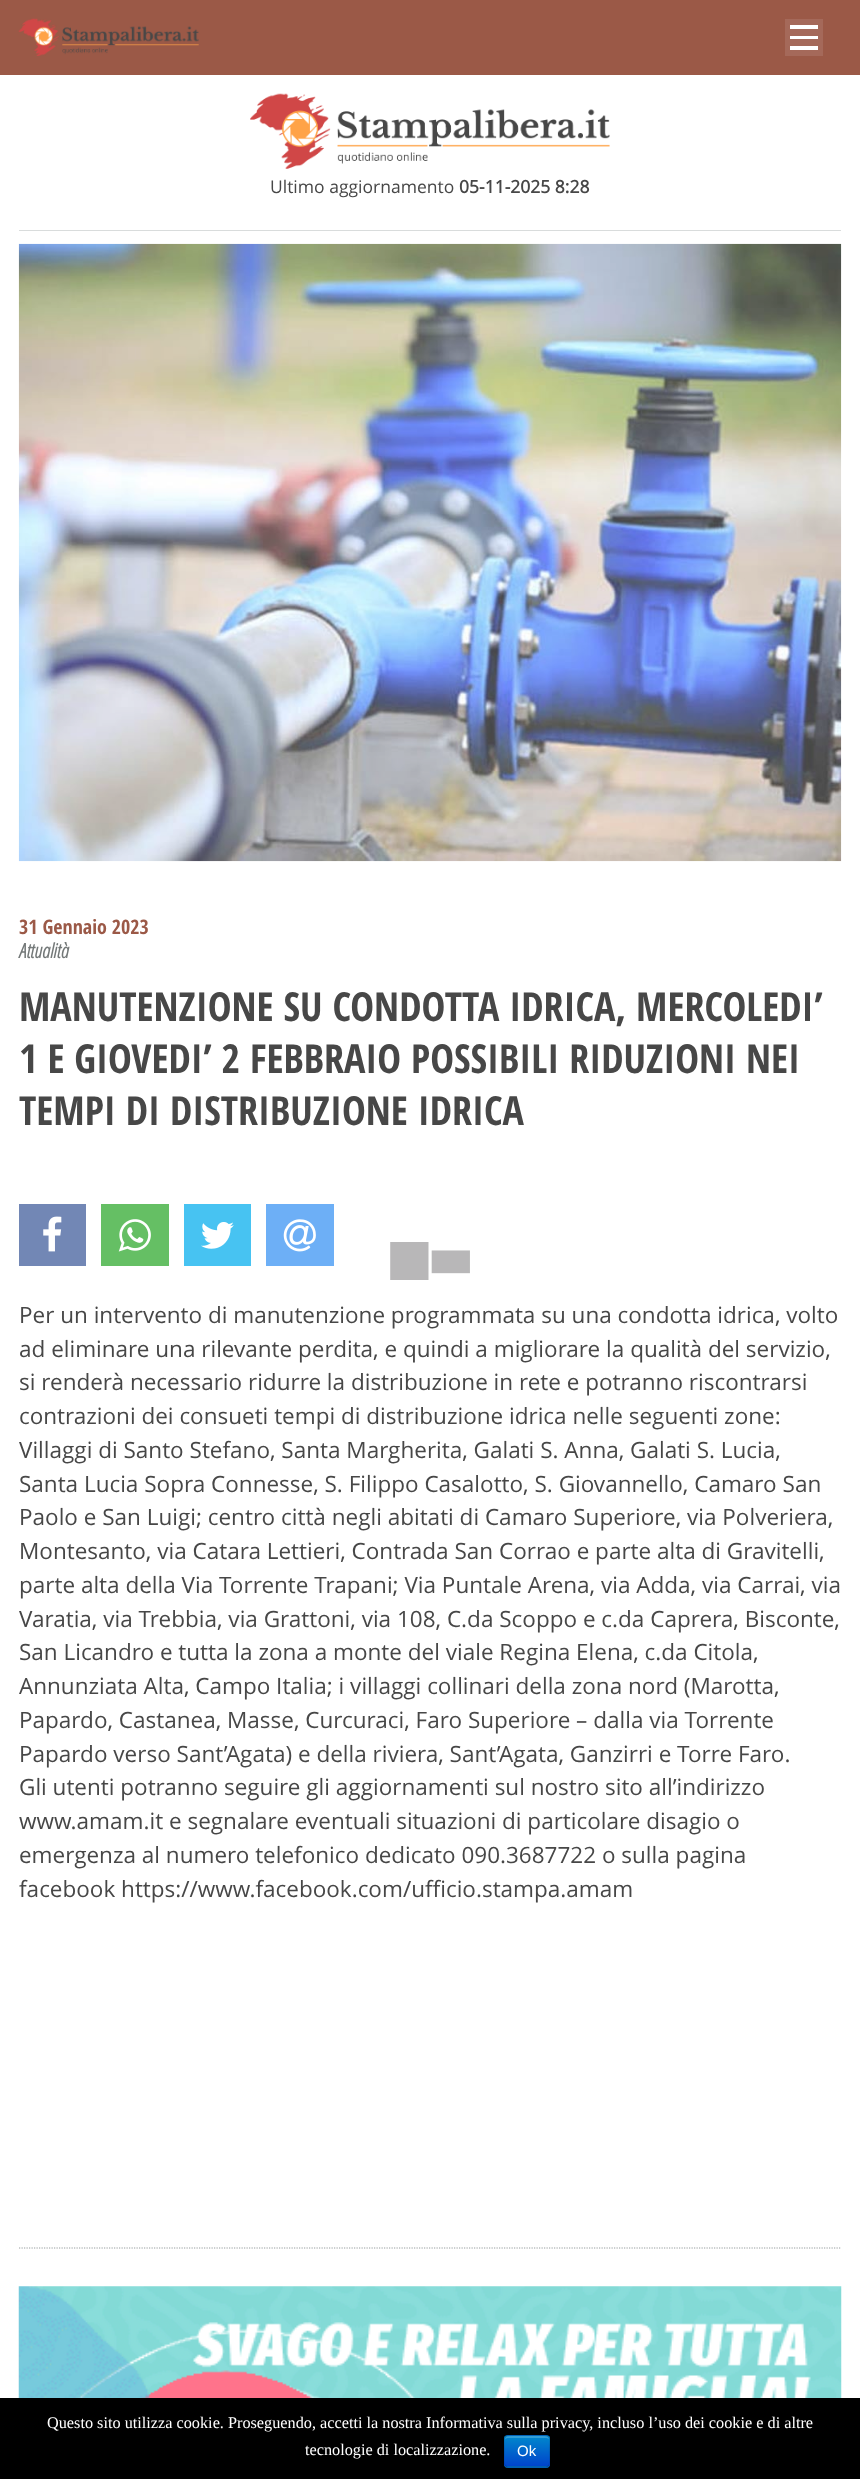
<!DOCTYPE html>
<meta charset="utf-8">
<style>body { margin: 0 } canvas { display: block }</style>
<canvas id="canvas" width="860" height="2479"></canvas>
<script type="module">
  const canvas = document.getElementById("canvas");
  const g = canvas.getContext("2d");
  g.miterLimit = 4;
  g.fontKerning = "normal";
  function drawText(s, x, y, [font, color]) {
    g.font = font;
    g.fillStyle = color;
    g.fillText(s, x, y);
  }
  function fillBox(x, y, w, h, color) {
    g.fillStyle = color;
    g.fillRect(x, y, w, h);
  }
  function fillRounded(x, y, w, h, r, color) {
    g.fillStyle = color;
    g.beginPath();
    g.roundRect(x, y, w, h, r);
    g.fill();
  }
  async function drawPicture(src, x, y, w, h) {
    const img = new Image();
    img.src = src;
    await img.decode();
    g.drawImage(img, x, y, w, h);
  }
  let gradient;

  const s1 = ["17.5px Open Sans", "#474747"];
  const s2 = ["bold 17.5px Open Sans", "#474747"];
  const s3 = ["bold 20px Open Sans Condensed", "#9B5947"];
  const s4 = ["italic bold 20px Open Sans Condensed", "#737878"];
  const s5 = ["bold 40px Open Sans Condensed", "#474747"];
  const s6 = ["22.5px Open Sans", "#474747"];
  const s7 = ["16.25px Liberation Serif", "#FFFFFF"];
  const s8 = ["15px Liberation Sans", "#FFFFFF"];

  fillBox(0, 0, 860, 2479, "#FFFFFF");
  fillBox(0, 0, 860, 75, "#9B5947");
  await drawPicture("pic1.png", 18, 18, 181, 38);
  fillBox(785, 19, 38, 37, "#A5695A");
  fillBox(790, 25, 28, 4, "#FFFFFF");
  fillBox(790, 36, 28, 3, "#FFFFFF");
  fillBox(790, 46, 28, 4, "#FFFFFF");
  fillBox(19, 230, 822, 1, "#D9DCDC");
  await drawPicture("pic2.png", 250, 93, 360, 76);
  drawText("Ultimo aggiornamento", 270, 193, s1);
  drawText("05-11-2025 8:28", 459, 193, s2);
  g.beginPath();
  g.moveTo(19, 2248);
  g.lineTo(841, 2248);
  g.strokeStyle = "#979E9F";
  g.lineWidth = 1.2;
  g.setLineDash([1.25, 1.25]);
  g.stroke();
  await drawPicture("pic3.png", 18, 243, 824, 619);
  drawText("31 Gennaio 2023", 19, 934, s3);
  drawText("Attualità", 19, 958, s4);
  drawText("MANUTENZIONE SU CONDOTTA IDRICA, MERCOLEDI’", 19, 1021, s5);
  drawText("1 E GIOVEDI’ 2 FEBBRAIO POSSIBILI RIDUZIONI NEI", 19, 1073, s5);
  drawText("TEMPI DI DISTRIBUZIONE IDRICA", 19, 1125, s5);
  fillBox(19, 1204, 67, 62, "#7287B5");
  await drawPicture("pic4.png", 43, 1216, 19, 36);
  fillBox(101, 1204, 68, 62, "#65BF64");
  await drawPicture("pic5.png", 118, 1219, 33, 33);
  fillBox(184, 1204, 67, 62, "#47C3F2");
  await drawPicture("pic6.png", 201, 1222, 33, 27);
  fillBox(266, 1204, 68, 62, "#6DAFF6");
  await drawPicture("pic7.png", 283, 1219, 33, 33);
  drawText("Per un intervento di manutenzione programmata su una condotta idrica, volto", 19, 1323, s6);
  drawText("ad eliminare una rilevante perdita, e quindi a migliorare la qualità del servizio,", 19, 1357, s6);
  drawText("si renderà necessario ridurre la distribuzione in rete e potranno riscontrarsi", 19, 1390, s6);
  drawText("contrazioni dei consueti tempi di distribuzione idrica nelle seguenti zone:", 19, 1424, s6);
  drawText("Villaggi di Santo Stefano, Santa Margherita, Galati S. Anna, Galati S. Lucia,", 19, 1458, s6);
  drawText("Santa Lucia Sopra Connesse, S. Filippo Casalotto, S. Giovannello, Camaro San", 19, 1492, s6);
  drawText("Paolo e San Luigi; centro città negli abitati di Camaro Superiore, via Polveriera,", 19, 1525, s6);
  drawText("Montesanto, via Catara Lettieri, Contrada San Corrao e parte alta di Gravitelli,", 19, 1559, s6);
  drawText("parte alta della Via Torrente Trapani; Via Puntale Arena, via Adda, via Carrai, via", 19, 1593, s6);
  drawText("Varatia, via Trebbia, via Grattoni, via 108, C.da Scoppo e c.da Caprera, Bisconte,", 19, 1627, s6);
  drawText("San Licandro e tutta la zona a monte del viale Regina Elena, c.da Citola,", 19, 1660, s6);
  drawText("Annunziata Alta, Campo Italia; i villaggi collinari della zona nord (Marotta,", 19, 1694, s6);
  drawText("Papardo, Castanea, Masse, Curcuraci, Faro Superiore – dalla via Torrente", 19, 1728, s6);
  drawText("Papardo verso Sant’Agata) e della riviera, Sant’Agata, Ganzirri e Torre Faro.", 19, 1762, s6);
  drawText("Gli utenti potranno seguire gli aggiornamenti sul nostro sito all’indirizzo", 19, 1795, s6);
  drawText("www.amam.it e segnalare eventuali situazioni di particolare disagio o", 19, 1829, s6);
  drawText("emergenza al numero telefonico dedicato 090.3687722 o sulla pagina", 19, 1863, s6);
  drawText("facebook https://www.facebook.com/ufficio.stampa.amam", 19, 1897, s6);
  await drawPicture("pic8.png", 18, 2286, 824, 112);
  await drawPicture("pic9.png", 390, 1242, 80, 38);
  fillBox(0, 2398, 860, 81, "#000000");
  drawText("Questo sito utilizza cookie. Proseguendo, accetti la nostra Informativa sulla privacy, incluso l’uso dei cookie e di altre", 47, 2428, s7);
  drawText("tecnologie di localizzazione.", 305, 2455, s7);
  fillRounded(504, 2435, 46, 33, 4, "#006DCC");
  g.save();
  g.beginPath();
  g.roundRect(504, 2435, 46, 33, 4);
  g.clip();
  gradient = g.createLinearGradient(527, 2436, 527, 2466);
  gradient.addColorStop(0, "#0088CC");
  gradient.addColorStop(1, "#0044CC");
  g.fillStyle = gradient;
  g.fillRect(504, 2436, 46, 30);
  g.restore();
  g.fillStyle = "rgba(255, 255, 255, 0.2)";
  g.beginPath();
  g.moveTo(508, 2438);
  g.lineTo(546, 2438);
  g.bezierCurveTo(548, 2438, 549, 2439, 549, 2440);
  g.bezierCurveTo(549, 2435, 545, 2436, 540, 2436);
  g.lineTo(514, 2436);
  g.bezierCurveTo(509, 2436, 505, 2435, 505, 2440);
  g.bezierCurveTo(505, 2439, 506, 2438, 508, 2438);
  g.closePath();
  g.fill();
  g.beginPath();
  g.moveTo(548.5, 2466);
  g.lineTo(546, 2467);
  g.lineTo(507.5, 2467);
  g.lineTo(505.5, 2466);
  g.strokeStyle = "rgba(0, 0, 0, 0.25)";
  g.setLineDash([]);
  g.stroke();
  g.beginPath();
  g.moveTo(505.5, 2466);
  g.bezierCurveTo(503, 2464, 504.5, 2454, 504.5, 2451);
  g.bezierCurveTo(504.5, 2436.5, 501, 2435.5, 514, 2435.5);
  g.lineTo(540, 2435.5);
  g.bezierCurveTo(553, 2435.5, 549.5, 2436.5, 549.5, 2451);
  g.bezierCurveTo(549.5, 2454, 550.5, 2464, 548.5, 2466);
  g.strokeStyle = "rgba(0, 0, 0, 0.1)";
  g.stroke();
  drawText("Ok", 517, 2456, s8);
</script>
